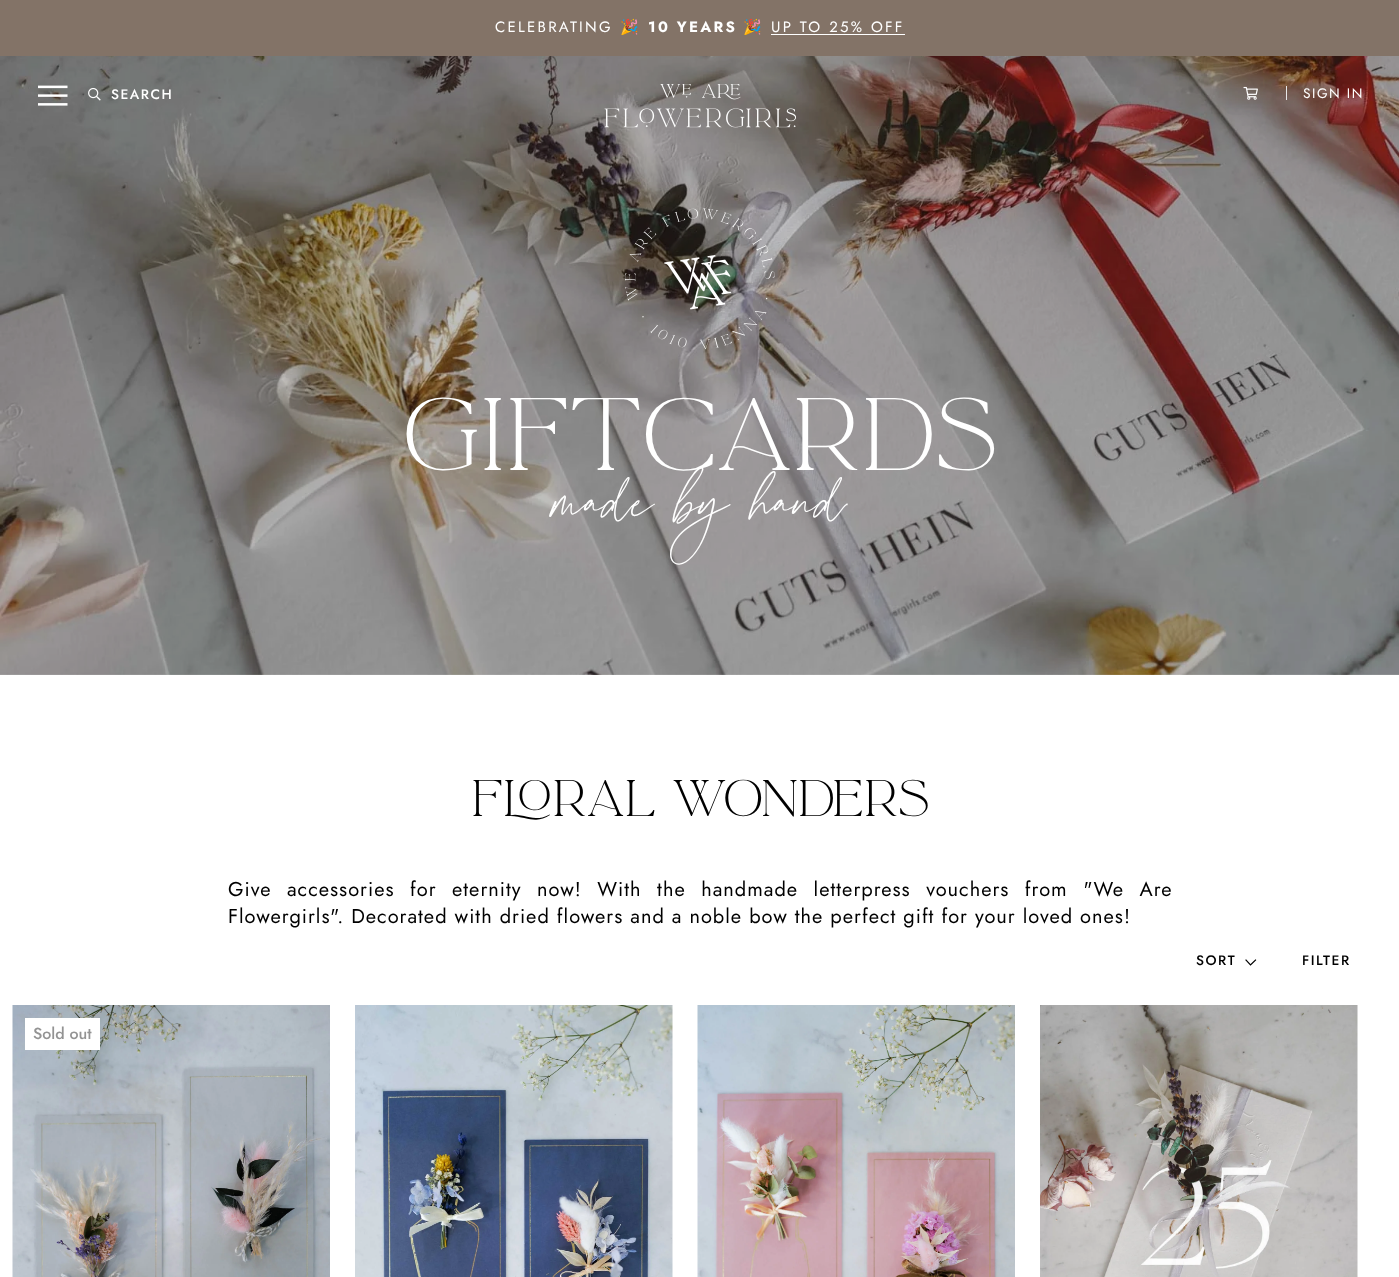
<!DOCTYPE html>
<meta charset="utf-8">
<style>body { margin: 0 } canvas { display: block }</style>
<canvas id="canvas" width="1399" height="1277"></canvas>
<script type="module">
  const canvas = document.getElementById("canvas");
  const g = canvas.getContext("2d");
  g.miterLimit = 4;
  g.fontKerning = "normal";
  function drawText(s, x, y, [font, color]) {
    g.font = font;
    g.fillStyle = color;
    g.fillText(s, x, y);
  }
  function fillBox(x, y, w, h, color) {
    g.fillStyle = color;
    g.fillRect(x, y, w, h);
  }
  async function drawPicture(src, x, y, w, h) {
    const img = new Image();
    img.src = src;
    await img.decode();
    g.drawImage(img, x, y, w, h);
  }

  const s1 = ["15px Jost", "#FFFFFF"];
  const s2 = ["15px Noto Color Emoji", "#FFFFFF"];
  const s3 = ["bold 15px Jost", "#FFFFFF"];
  const s4 = ["500 13.75px Jost", "#FFFFFF"];
  const s5 = ["13.75px Jost", "#FFFFFF"];
  const s6 = ["90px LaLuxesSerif", "#FFFFFF"];
  const s7 = ["90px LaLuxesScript", "#FFFFFF"];
  const s8 = ["45px LaLuxesSerif", "#000000"];
  const s9 = ["20px Jost", "#000000"];
  const s10 = ["500 13.75px Jost", "#000000"];
  const s11 = ["500 16px Jost", "#939393"];

  fillBox(0, 0, 1399, 1277, "#FFFFFF");
  fillBox(0, 0, 1399, 56, "#837367");
  g.letterSpacing = "2.25px";
  drawText("CELEBRATING", 495, 32, s1);
  drawText("🎉", 620, 32, s2);
  drawText("10 YEARS", 648, 32, s3);
  drawText("🎉", 743, 32, s2);
  drawText("UP TO 25% OFF", 771, 32, s1);
  fillBox(771, 34, 134, 1, "#FFFFFF");
  await drawPicture("pic5.png", 0, 56, 1399, 619);
  await drawPicture("pic1.png", 38, 85, 30, 21);
  await drawPicture("pic2.png", 88, 88, 13, 13);
  g.letterSpacing = "1.5px";
  drawText("SEARCH", 111, 99, s4);
  await drawPicture("pic3.png", 604, 84, 192, 44);
  fillBox(1286, 86, 1, 14, "#E7E7E7");
  await drawPicture("pic4.png", 1243, 86, 15, 14);
  drawText("SIGN IN", 1303, 98, s5);
  await drawPicture("pic6.png", 625, 208, 150, 142);
  g.letterSpacing = "0px";
  drawText("GIFTCARDS", 403, 470, s6);
  drawText("made by hand", 554, 532, s7);
  drawText("FLORAL WONDERS", 471, 816, s8);
  g.letterSpacing = "1px";
  g.wordSpacing = "8.5px";
  drawText("Give accessories for eternity now! With the handmade letterpress vouchers from \"We Are", 228, 896, s9);
  g.wordSpacing = "0px";
  drawText("Flowergirls\". Decorated with dried flowers and a noble bow the perfect gift for your loved ones!", 228, 923, s9);
  g.letterSpacing = "1.5px";
  drawText("SORT", 1196, 965, s10);
  g.beginPath();
  g.moveTo(1255.5, 960);
  g.lineTo(1250.5, 965);
  g.lineTo(1246, 960);
  g.strokeStyle = "#000000";
  g.lineWidth = 1.2;
  g.lineCap = "square";
  g.stroke();
  drawText("FILTER", 1302, 965, s10);
  await drawPicture("pic7.png", 12, 1005, 318, 272);
  fillBox(25, 1018, 75, 32, "#FFFFFF");
  g.letterSpacing = "0px";
  drawText("Sold out", 33, 1039, s11);
  await drawPicture("pic8.png", 355, 1005, 318, 272);
  await drawPicture("pic9.png", 697, 1005, 318, 272);
  await drawPicture("pic10.png", 1040, 1005, 318, 272);
</script>
